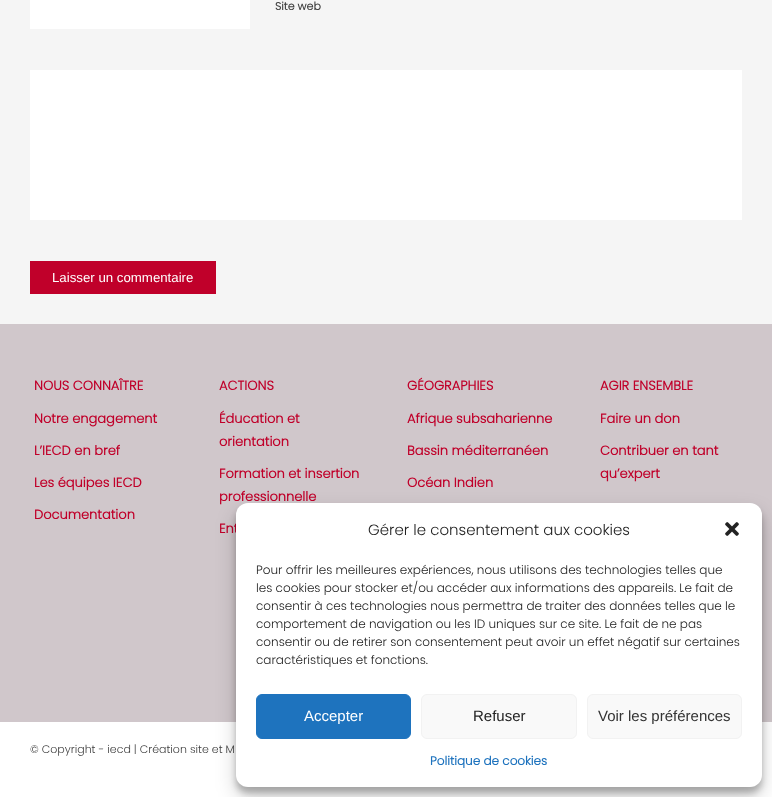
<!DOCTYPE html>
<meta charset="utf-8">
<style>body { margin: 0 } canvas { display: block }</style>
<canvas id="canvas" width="772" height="797"></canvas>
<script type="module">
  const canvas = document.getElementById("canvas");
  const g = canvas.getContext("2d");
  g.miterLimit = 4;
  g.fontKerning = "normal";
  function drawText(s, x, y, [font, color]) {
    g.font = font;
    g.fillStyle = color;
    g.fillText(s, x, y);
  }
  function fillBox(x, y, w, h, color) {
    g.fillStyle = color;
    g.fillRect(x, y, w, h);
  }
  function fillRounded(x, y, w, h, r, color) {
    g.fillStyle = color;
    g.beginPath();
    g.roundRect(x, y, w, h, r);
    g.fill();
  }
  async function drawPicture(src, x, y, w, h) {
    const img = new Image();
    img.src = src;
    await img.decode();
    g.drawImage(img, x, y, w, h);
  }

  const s1 = ["bold 11px Poppins", "#404040"];
  const s2 = ["13.25px Liberation Sans", "#FFFFFF"];
  const s3 = ["bold 13px Poppins", "#C0002A"];
  const s4 = ["300 11px Poppins", "#404040"];
  const s5 = ["300 15px Poppins", "#222222"];
  const s6 = ["300 12px Poppins", "#222222"];
  const s7 = ["15px Liberation Sans", "#FFFFFF"];
  const s8 = ["15px Liberation Sans", "#222222"];
  const s9 = ["15px Liberation Sans", "#333333"];
  const s10 = ["bold 12px Poppins", "#1E73BE"];

  fillBox(0, 0, 772, 797, "#F5F5F5");
  fillBox(30, 0, 220, 29, "#FFFFFF");
  drawText("Site web", 275, 10, s1);
  fillBox(30, 70, 712, 150, "#FFFFFF");
  fillBox(30, 261, 186, 33, "#C0002A");
  drawText("Laisser un commentaire", 52, 282, s2);
  fillBox(0, 324, 772, 398, "#D0C7CB");
  drawText("NOUS CONNAÎTRE", 34, 390, s3);
  drawText("Notre engagement", 34, 423, s3);
  drawText("L’IECD en bref", 34, 455, s3);
  drawText("Les équipes IECD", 34, 487, s3);
  drawText("Documentation", 34, 519, s3);
  drawText("ACTIONS", 219, 390, s3);
  drawText("Éducation et", 219, 423, s3);
  drawText("orientation", 219, 446, s3);
  drawText("Formation et insertion", 219, 478, s3);
  drawText("professionnelle", 219, 501, s3);
  drawText("Ent", 219, 533, s3);
  drawText("GÉOGRAPHIES", 407, 390, s3);
  drawText("Afrique subsaharienne", 407, 423, s3);
  drawText("Bassin méditerranéen", 407, 455, s3);
  drawText("Océan Indien", 407, 487, s3);
  drawText("AGIR ENSEMBLE", 600, 390, s3);
  drawText("Faire un don", 600, 423, s3);
  drawText("Contribuer en tant", 600, 455, s3);
  drawText("qu’expert", 600, 478, s3);
  fillBox(0, 722, 772, 75, "#FFFFFF");
  drawText("© Copyright - iecd | Création site et M", 30, 753, s4);
  g.fillStyle = "rgba(0, 0, 0, 0.23)";
  g.filter = "blur(3px)";
  g.beginPath();
  g.roundRect(236, 509, 526, 284, 12);
  g.fill();
  g.filter = "none";
  g.fillStyle = "rgba(0, 0, 0, 0.19)";
  g.filter = "blur(10px)";
  g.beginPath();
  g.roundRect(236, 513, 526, 284, 12);
  g.fill();
  g.filter = "none";
  fillRounded(236, 503, 526, 284, 12, "#FFFFFF");
  drawText("Gérer le consentement aux cookies", 368, 535, s5);
  await drawPicture("pic1.png", 725, 522, 14, 14);
  drawText("Pour offrir les meilleures expériences, nous utilisons des technologies telles que", 256, 574, s6);
  drawText("les cookies pour stocker et/ou accéder aux informations des appareils. Le fait de", 256, 592, s6);
  drawText("consentir à ces technologies nous permettra de traiter des données telles que le", 256, 610, s6);
  drawText("comportement de navigation ou les ID uniques sur ce site. Le fait de ne pas", 256, 628, s6);
  drawText("consentir ou de retirer son consentement peut avoir un effet négatif sur certaines", 256, 646, s6);
  drawText("caractéristiques et fonctions.", 256, 664, s6);
  g.fillStyle = "#1E73BE";
  g.beginPath();
  g.roundRect(256.5, 694.5, 154, 44, 5.5);
  g.fill();
  g.strokeStyle = "#1E73BE";
  g.stroke();
  drawText("Accepter", 304, 721, s7);
  g.fillStyle = "#F9F9F9";
  g.beginPath();
  g.roundRect(421.5, 694.5, 155, 44, 5.5);
  g.fill();
  g.strokeStyle = "#F2F2F2";
  g.stroke();
  drawText("Refuser", 473, 721, s8);
  g.fillStyle = "#F9F9F9";
  g.beginPath();
  g.roundRect(587.5, 694.5, 154, 44, 5.5);
  g.fill();
  g.stroke();
  drawText("Voir les préférences", 598, 721, s9);
  drawText("Politique de cookies", 430, 765, s10);
</script>
